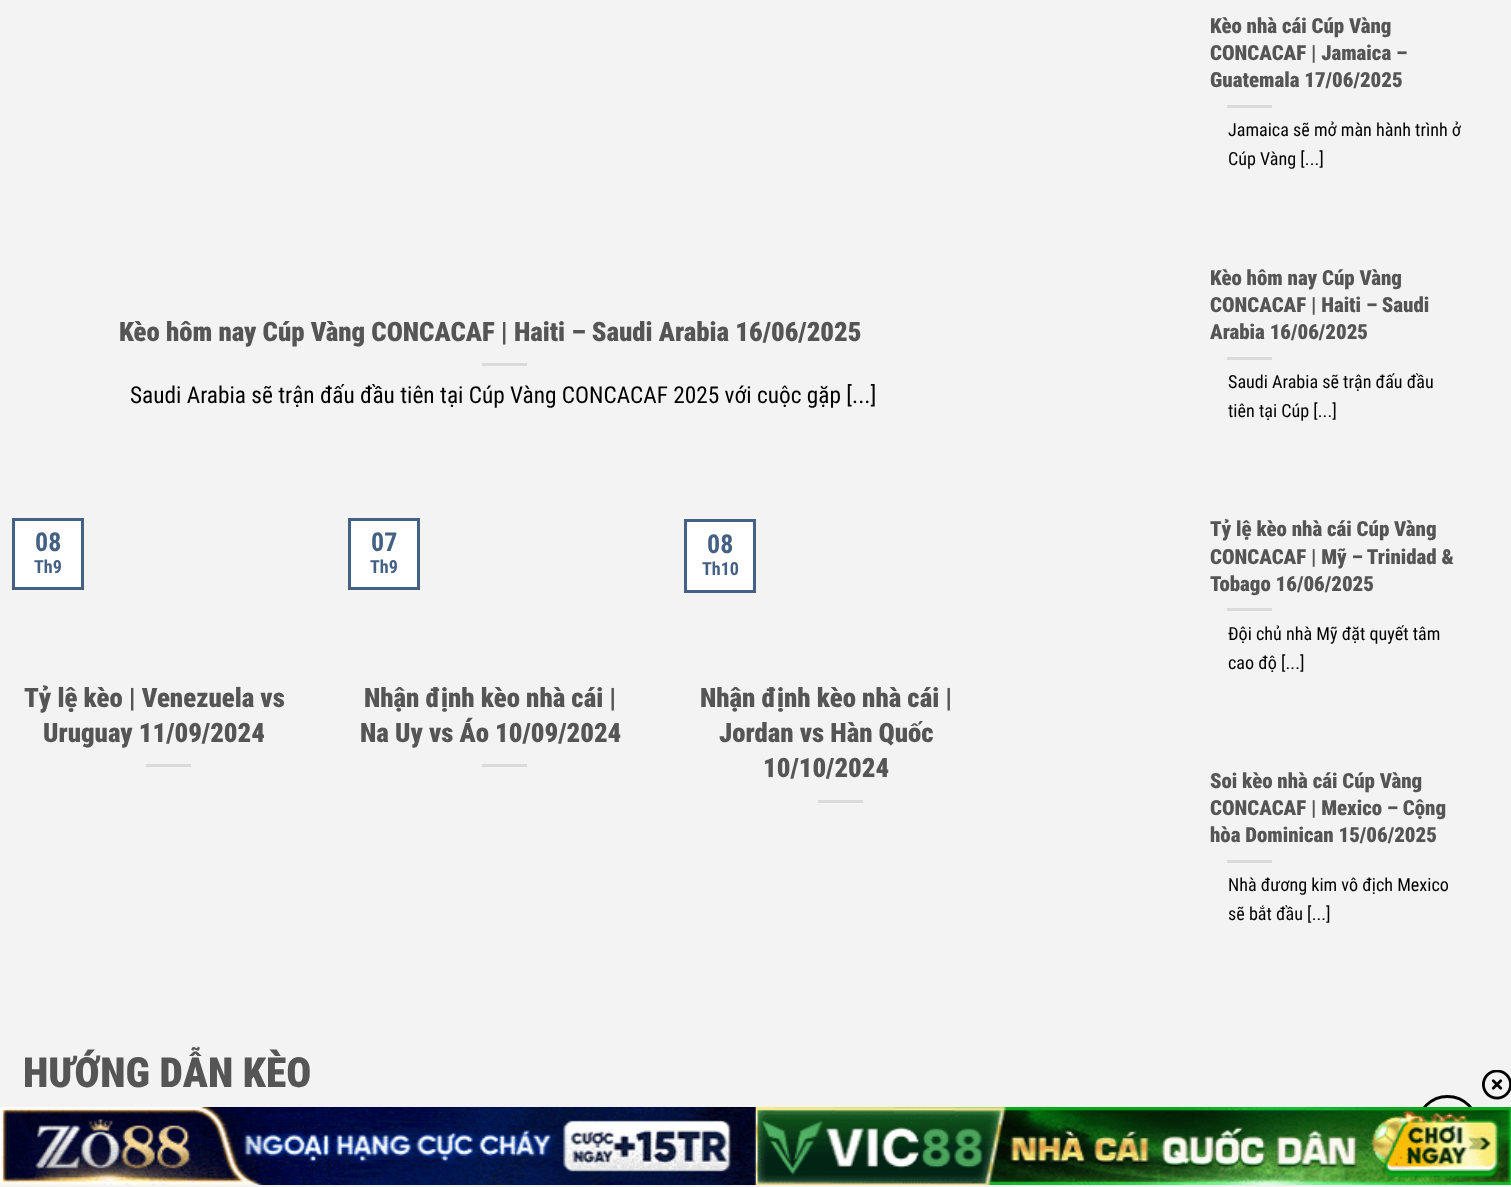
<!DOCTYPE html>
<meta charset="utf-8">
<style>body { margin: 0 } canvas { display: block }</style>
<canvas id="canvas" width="1511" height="1187"></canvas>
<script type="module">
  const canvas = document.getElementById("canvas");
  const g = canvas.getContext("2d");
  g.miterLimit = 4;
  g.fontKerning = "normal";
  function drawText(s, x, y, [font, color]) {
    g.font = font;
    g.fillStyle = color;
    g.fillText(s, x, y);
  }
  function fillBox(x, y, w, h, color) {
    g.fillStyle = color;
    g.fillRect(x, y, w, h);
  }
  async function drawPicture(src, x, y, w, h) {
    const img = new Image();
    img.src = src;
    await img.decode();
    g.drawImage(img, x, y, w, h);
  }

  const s1 = ["900 26.8px Roboto Condensed", "#555555"];
  const s2 = ["23.3px Roboto Condensed", "#000000"];
  const s3 = ["bold 26px Roboto Condensed", "#446084"];
  const s4 = ["bold 18.1px Roboto Condensed", "#446084"];
  const s5 = ["900 20.9px Roboto Condensed", "#555555"];
  const s6 = ["18.1px Roboto Condensed", "#000000"];
  const s7 = ["900 41.5px Roboto Condensed", "#555555"];

  fillBox(0, 0, 1511, 1187, "#F3F3F3");
  drawText("Kèo hôm nay Cúp Vàng CONCACAF | Haiti – Saudi Arabia 16/06/2025", 119, 341, s1);
  fillBox(482, 363, 45, 3, "#DBDBDB");
  drawText("Saudi Arabia sẽ trận đấu đầu tiên tại Cúp Vàng CONCACAF 2025 với cuộc gặp [...]", 130, 403, s2);
  g.fillStyle = "#FFFFFF";
  g.beginPath();
  g.rect(13.5, 519.5, 69, 69);
  g.fill();
  g.strokeStyle = "#446084";
  g.lineWidth = 3;
  g.stroke();
  drawText("08", 35, 551, s3);
  drawText("Th9", 34, 573, s4);
  drawText("Tỷ lệ kèo | Venezuela vs", 24, 707, s1);
  drawText("Uruguay 11/09/2024", 43, 742, s1);
  fillBox(146, 764, 45, 3, "#DBDBDB");
  g.fillStyle = "#FFFFFF";
  g.beginPath();
  g.rect(349.5, 519.5, 69, 69);
  g.fill();
  g.stroke();
  drawText("07", 371, 551, s3);
  drawText("Th9", 370, 573, s4);
  drawText("Nhận định kèo nhà cái |", 364, 707, s1);
  drawText("Na Uy vs Áo 10/09/2024", 360, 742, s1);
  fillBox(482, 764, 45, 3, "#DBDBDB");
  g.fillStyle = "#FFFFFF";
  g.beginPath();
  g.rect(685.5, 520.5, 69, 71);
  g.fill();
  g.stroke();
  drawText("08", 707, 553, s3);
  drawText("Th10", 702, 575, s4);
  drawText("Nhận định kèo nhà cái |", 700, 707, s1);
  drawText("Jordan vs Hàn Quốc", 719, 742, s1);
  drawText("10/10/2024", 763, 777, s1);
  fillBox(818, 800, 45, 3, "#DBDBDB");
  drawText("Kèo nhà cái Cúp Vàng", 1210, 33, s5);
  drawText("CONCACAF | Jamaica –", 1210, 60, s5);
  drawText("Guatemala 17/06/2025", 1210, 87, s5);
  fillBox(1227, 105, 45, 3, "#DBDBDB");
  drawText("Jamaica sẽ mở màn hành trình ở", 1228, 136, s6);
  drawText("Cúp Vàng [...]", 1228, 165, s6);
  drawText("Kèo hôm nay Cúp Vàng", 1210, 285, s5);
  drawText("CONCACAF | Haiti – Saudi", 1210, 312, s5);
  drawText("Arabia 16/06/2025", 1210, 339, s5);
  fillBox(1227, 357, 45, 3, "#DBDBDB");
  drawText("Saudi Arabia sẽ trận đấu đầu", 1228, 388, s6);
  drawText("tiên tại Cúp [...]", 1228, 417, s6);
  drawText("Tỷ lệ kèo nhà cái Cúp Vàng", 1210, 536, s5);
  drawText("CONCACAF | Mỹ – Trinidad &", 1210, 564, s5);
  drawText("Tobago 16/06/2025", 1210, 591, s5);
  fillBox(1227, 608, 45, 3, "#DBDBDB");
  drawText("Đội chủ nhà Mỹ đặt quyết tâm", 1228, 640, s6);
  drawText("cao độ [...]", 1228, 669, s6);
  drawText("Soi kèo nhà cái Cúp Vàng", 1210, 788, s5);
  drawText("CONCACAF | Mexico – Cộng", 1210, 815, s5);
  drawText("hòa Dominican 15/06/2025", 1210, 842, s5);
  fillBox(1227, 860, 45, 3, "#DBDBDB");
  drawText("Nhà đương kim vô địch Mexico", 1228, 891, s6);
  drawText("sẽ bắt đầu [...]", 1228, 920, s6);
  drawText("HƯỚNG DẪN KÈO", 23, 1087, s7);
  g.beginPath();
  g.arc(1447.5, 1126.5, 30, 0, Math.PI * 2);
  g.strokeStyle = "#000000";
  g.stroke();
  await drawPicture("pic1.png", 1482, 1070, 29, 30);
  await drawPicture("pic2.png", 0, 1107, 756, 78);
  await drawPicture("pic3.png", 756, 1107, 755, 78);
</script>
